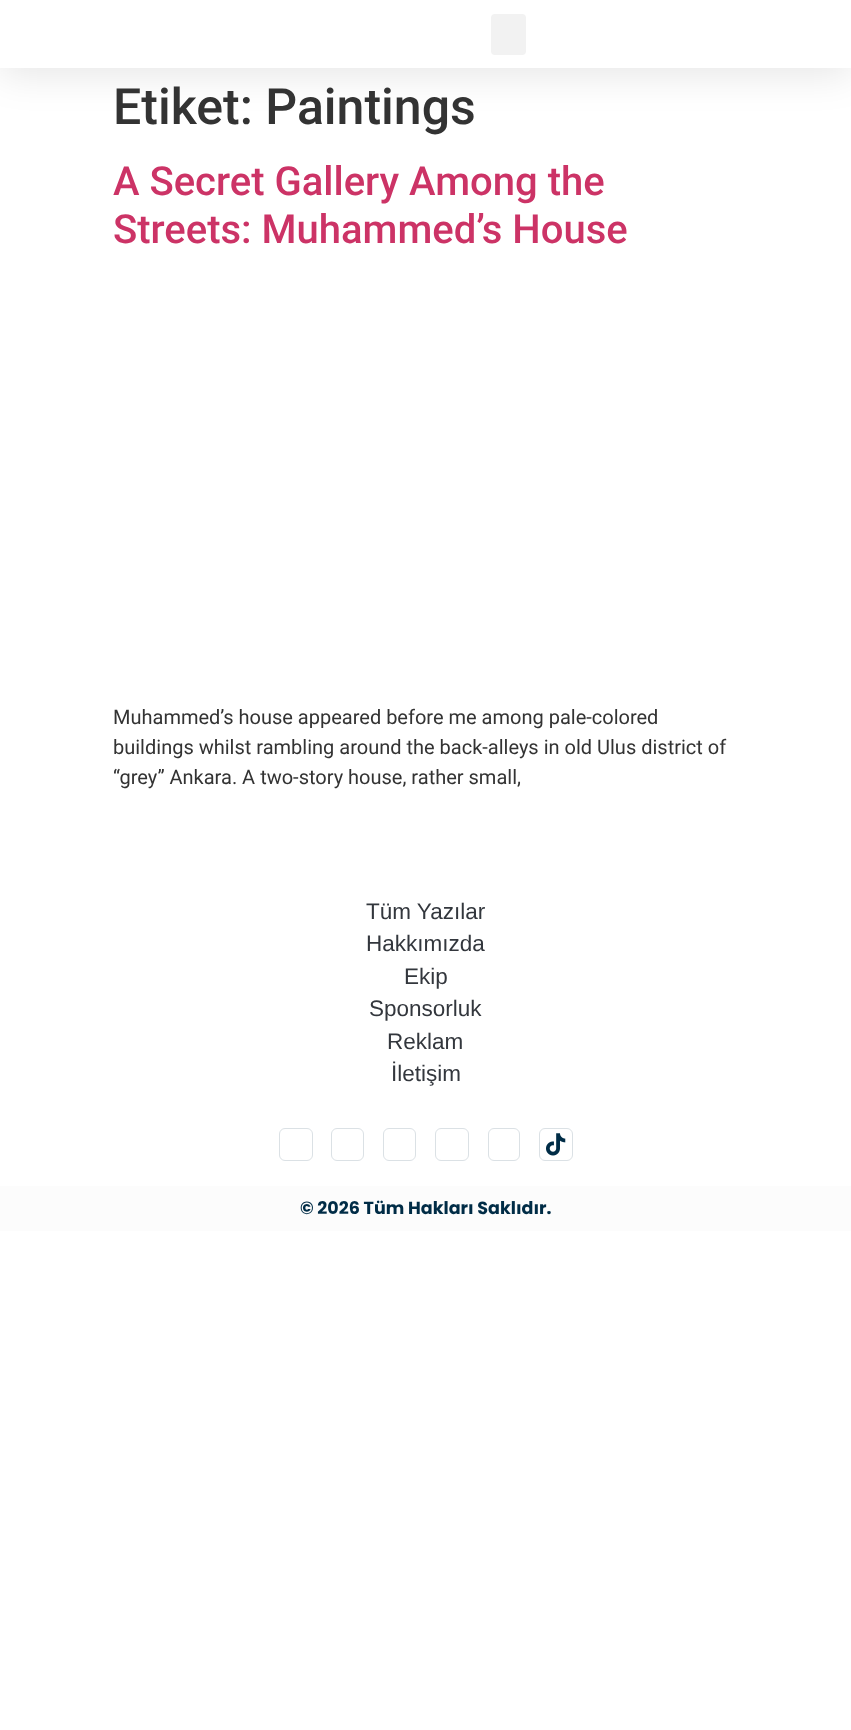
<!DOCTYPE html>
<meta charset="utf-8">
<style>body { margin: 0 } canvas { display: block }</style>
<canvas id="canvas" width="851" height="1730"></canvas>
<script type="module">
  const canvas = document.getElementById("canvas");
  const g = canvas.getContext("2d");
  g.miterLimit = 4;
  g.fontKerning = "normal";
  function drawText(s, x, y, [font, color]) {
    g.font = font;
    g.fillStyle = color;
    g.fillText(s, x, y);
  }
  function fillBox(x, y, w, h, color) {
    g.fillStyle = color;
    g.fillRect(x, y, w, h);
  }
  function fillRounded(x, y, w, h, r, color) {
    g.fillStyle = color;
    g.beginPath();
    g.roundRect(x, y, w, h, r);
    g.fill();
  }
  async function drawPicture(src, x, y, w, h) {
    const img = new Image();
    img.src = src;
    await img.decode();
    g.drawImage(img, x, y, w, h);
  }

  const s1 = ["500 50px Roboto", "#333333"];
  const s2 = ["500 40px Roboto", "#CC3366"];
  const s3 = ["20px Roboto", "#333333"];
  const s4 = ["22.5px Liberation Sans", "#33373D"];
  const s5 = ["bold 17.5px Poppins", "#002C46"];

  fillBox(0, 0, 851, 1730, "#FFFFFF");
  g.fillStyle = "rgba(0, 0, 0, 0.1)";
  g.filter = "blur(19px)";
  g.beginPath();
  g.rect(0, 6, 851, 68);
  g.fill();
  g.filter = "none";
  fillBox(0, 0, 851, 68, "#FFFFFF");
  fillRounded(491, 14, 35, 41, 4, "#F2F2F2");
  drawText("Etiket: Paintings", 113, 124, s1);
  drawText("A Secret Gallery Among the", 113, 195, s2);
  drawText("Streets: Muhammed’s House", 113, 243, s2);
  drawText("Muhammed’s house appeared before me among pale-colored", 113, 724, s3);
  drawText("buildings whilst rambling around the back-alleys in old Ulus district of", 113, 754, s3);
  drawText("“grey” Ankara. A two-story house, rather small,", 113, 784, s3);
  drawText("Tüm Yazılar", 366, 919, s4);
  drawText("Hakkımızda", 366, 951, s4);
  drawText("Ekip", 404, 984, s4);
  drawText("Sponsorluk", 369, 1016, s4);
  drawText("Reklam", 387, 1049, s4);
  drawText("İletişim", 391, 1081, s4);
  g.beginPath();
  g.roundRect(279.5, 1128.5, 33, 32, 5.5);
  g.strokeStyle = "#DBE1E5";
  g.stroke();
  g.beginPath();
  g.roundRect(331.5, 1128.5, 32, 32, 5.5);
  g.stroke();
  g.beginPath();
  g.roundRect(383.5, 1128.5, 32, 32, 5.5);
  g.stroke();
  g.beginPath();
  g.roundRect(435.5, 1128.5, 33, 32, 5.5);
  g.stroke();
  g.beginPath();
  g.roundRect(488.5, 1128.5, 31, 32, 5.5);
  g.stroke();
  g.beginPath();
  g.roundRect(539.5, 1128.5, 33, 32, 5.5);
  g.stroke();
  await drawPicture("pic1.png", 546, 1133, 20, 23);
  fillBox(0, 1186, 851, 45, "#FCFCFC");
  drawText("© 2026 Tüm Hakları Saklıdır.", 300, 1214, s5);
</script>
